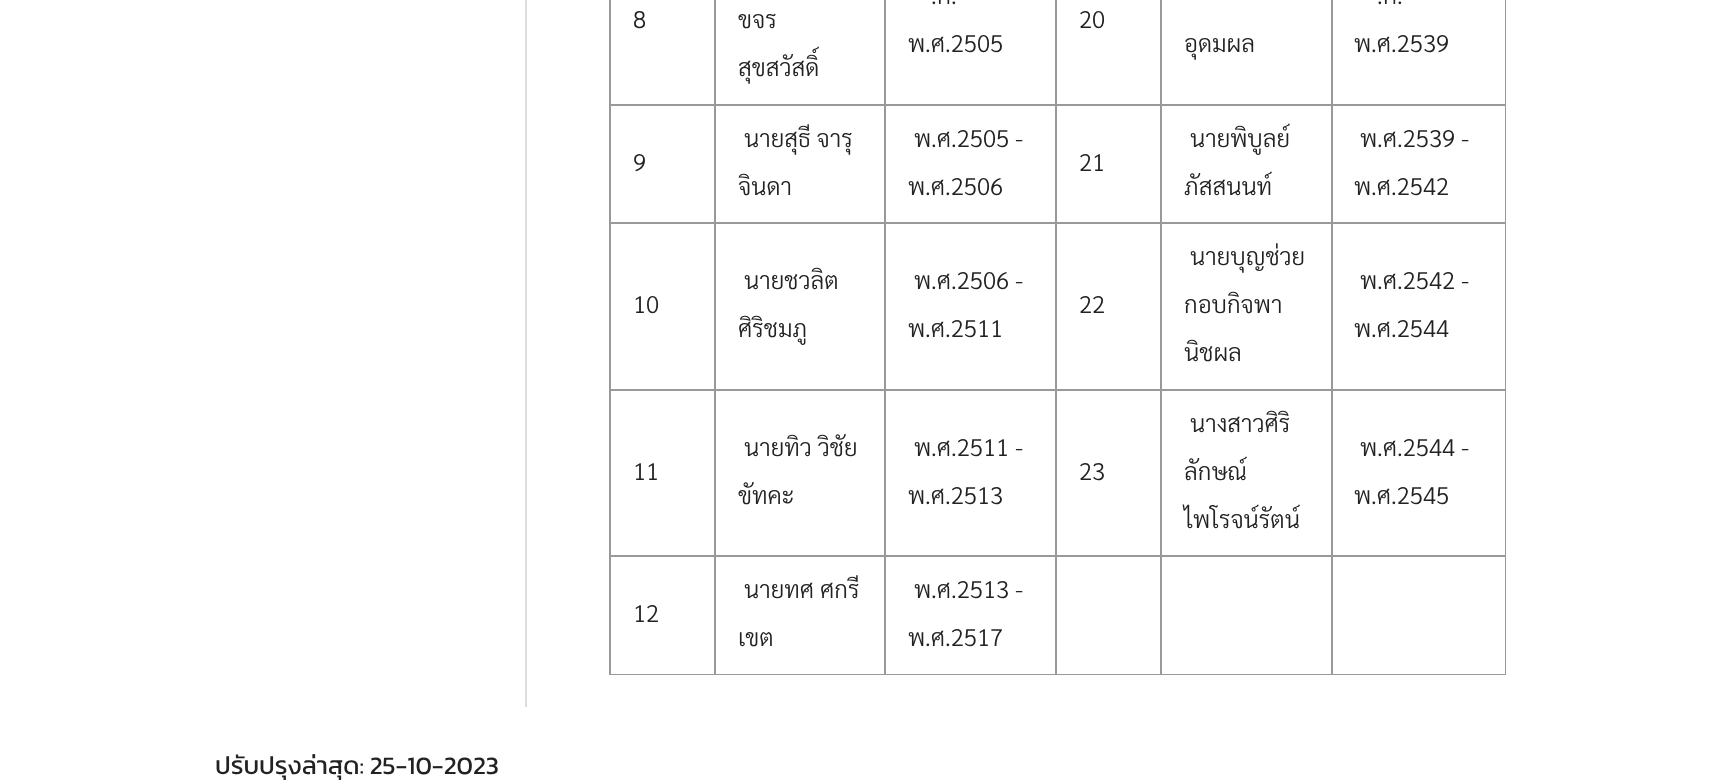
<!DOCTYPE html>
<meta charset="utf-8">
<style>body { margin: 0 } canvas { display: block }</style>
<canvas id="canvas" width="1720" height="780"></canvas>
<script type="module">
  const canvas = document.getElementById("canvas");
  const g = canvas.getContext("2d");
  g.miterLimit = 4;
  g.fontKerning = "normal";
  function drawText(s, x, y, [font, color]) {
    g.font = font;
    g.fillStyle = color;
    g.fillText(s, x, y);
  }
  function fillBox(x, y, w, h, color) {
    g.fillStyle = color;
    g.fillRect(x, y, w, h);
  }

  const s1 = ["300 24px Sarabun", "#222222"];
  const s2 = ["25.25px Kanit", "#222222"];

  fillBox(0, 0, 1720, 780, "#FFFFFF");
  fillBox(525, 0, 2, 707, "#DDDDDD");
  fillBox(1505, 0, 1, 675, "#999999");
  fillBox(609, 674, 897, 1, "#999999");
  fillBox(609, 0, 2, 675, "#999999");
  drawText("8", 633, 28, s1);
  fillBox(1331, 104, 175, 2, "#999999");
  fillBox(1331, 222, 175, 2, "#999999");
  fillBox(1331, 389, 175, 2, "#999999");
  fillBox(1331, 555, 175, 2, "#999999");
  fillBox(1331, 555, 2, 120, "#999999");
  fillBox(1160, 555, 172, 2, "#999999");
  fillBox(1331, 389, 2, 168, "#999999");
  fillBox(1160, 389, 172, 2, "#999999");
  fillBox(1331, 222, 2, 168, "#999999");
  fillBox(1160, 222, 172, 2, "#999999");
  fillBox(1331, 104, 2, 120, "#999999");
  fillBox(1160, 104, 172, 2, "#999999");
  fillBox(1160, 555, 2, 120, "#999999");
  fillBox(1055, 555, 106, 2, "#999999");
  fillBox(1160, 389, 2, 168, "#999999");
  fillBox(1055, 389, 106, 2, "#999999");
  fillBox(1160, 222, 2, 168, "#999999");
  fillBox(1055, 222, 106, 2, "#999999");
  fillBox(1160, 104, 2, 120, "#999999");
  fillBox(1055, 104, 106, 2, "#999999");
  fillBox(1055, 555, 2, 120, "#999999");
  fillBox(884, 555, 172, 2, "#999999");
  fillBox(1055, 389, 2, 168, "#999999");
  fillBox(884, 389, 172, 2, "#999999");
  fillBox(1055, 222, 2, 168, "#999999");
  fillBox(884, 222, 172, 2, "#999999");
  fillBox(1055, 104, 2, 120, "#999999");
  fillBox(884, 104, 172, 2, "#999999");
  fillBox(884, 555, 2, 120, "#999999");
  fillBox(714, 555, 171, 2, "#999999");
  fillBox(884, 389, 2, 168, "#999999");
  fillBox(714, 389, 171, 2, "#999999");
  fillBox(884, 222, 2, 168, "#999999");
  fillBox(714, 222, 171, 2, "#999999");
  fillBox(884, 104, 2, 120, "#999999");
  fillBox(714, 104, 171, 2, "#999999");
  fillBox(714, 555, 2, 120, "#999999");
  fillBox(609, 555, 107, 2, "#999999");
  fillBox(714, 389, 2, 168, "#999999");
  fillBox(609, 389, 107, 2, "#999999");
  fillBox(714, 222, 2, 168, "#999999");
  fillBox(609, 222, 107, 2, "#999999");
  fillBox(714, 104, 2, 120, "#999999");
  fillBox(609, 104, 107, 2, "#999999");
  fillBox(714, 0, 2, 105, "#999999");
  drawText("ขจร", 738, 28, s1);
  drawText("สุขสวัสดิ์", 738, 76, s1);
  fillBox(884, 0, 2, 105, "#999999");
  drawText(".ศ.", 931, 4, s1);
  drawText("พ.ศ.2505", 908, 52, s1);
  fillBox(1055, 0, 2, 105, "#999999");
  drawText("20", 1079, 28, s1);
  fillBox(1160, 0, 2, 105, "#999999");
  drawText("อุดมผล", 1184, 52, s1);
  fillBox(1331, 0, 2, 105, "#999999");
  drawText(".ศ.", 1377, 4, s1);
  drawText("พ.ศ.2539", 1354, 52, s1);
  drawText("9", 633, 171, s1);
  drawText("นายสุธี จารุ", 744, 147, s1);
  drawText("จินดา", 738, 195, s1);
  drawText("พ.ศ.2505 -", 914, 147, s1);
  drawText("พ.ศ.2506", 908, 195, s1);
  drawText("21", 1079, 171, s1);
  drawText("นายพิบูลย์", 1190, 147, s1);
  drawText("ภัสสนนท์", 1184, 195, s1);
  drawText("พ.ศ.2539 -", 1360, 147, s1);
  drawText("พ.ศ.2542", 1354, 195, s1);
  drawText("10", 633, 313, s1);
  drawText("นายชวลิต", 744, 289, s1);
  drawText("ศิริชมภู", 738, 337, s1);
  drawText("พ.ศ.2506 -", 914, 289, s1);
  drawText("พ.ศ.2511", 908, 337, s1);
  drawText("22", 1079, 313, s1);
  drawText("นายบุญช่วย", 1190, 265, s1);
  drawText("กอบกิจพา", 1184, 313, s1);
  drawText("นิชผล", 1184, 361, s1);
  drawText("พ.ศ.2542 -", 1360, 289, s1);
  drawText("พ.ศ.2544", 1354, 337, s1);
  drawText("11", 633, 480, s1);
  drawText("นายทิว วิชัย", 744, 456, s1);
  drawText("ขัทคะ", 738, 504, s1);
  drawText("พ.ศ.2511 -", 914, 456, s1);
  drawText("พ.ศ.2513", 908, 504, s1);
  drawText("23", 1079, 480, s1);
  drawText("นางสาวศิริ", 1190, 432, s1);
  drawText("ลักษณ์", 1184, 480, s1);
  drawText("ไพโรจน์รัตน์", 1184, 528, s1);
  drawText("พ.ศ.2544 -", 1360, 456, s1);
  drawText("พ.ศ.2545", 1354, 504, s1);
  drawText("12", 633, 622, s1);
  drawText("นายทศ ศกรี", 744, 598, s1);
  drawText("เขต", 738, 646, s1);
  drawText("พ.ศ.2513 -", 914, 598, s1);
  drawText("พ.ศ.2517", 908, 646, s1);
  drawText("ปรับปรุงล่าสุด: 25-10-2023", 215, 774, s2);
</script>
